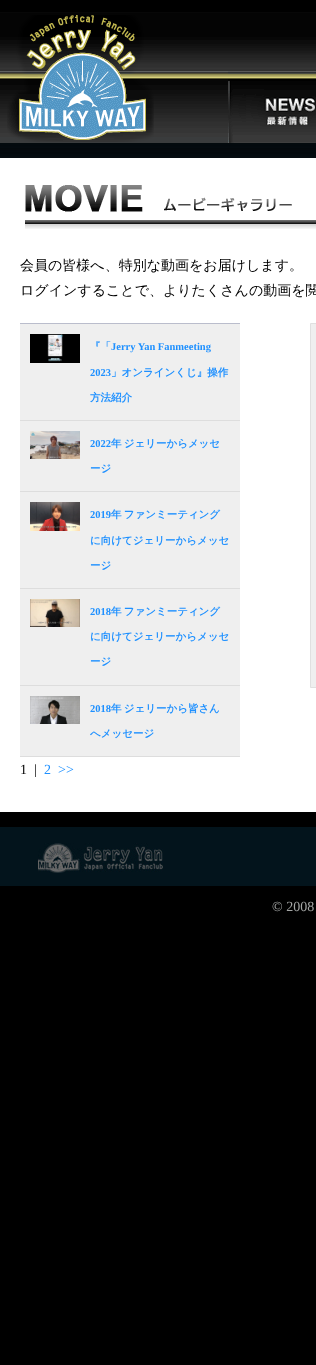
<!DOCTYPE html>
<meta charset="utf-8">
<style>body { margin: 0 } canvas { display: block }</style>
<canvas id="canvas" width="316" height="1365"></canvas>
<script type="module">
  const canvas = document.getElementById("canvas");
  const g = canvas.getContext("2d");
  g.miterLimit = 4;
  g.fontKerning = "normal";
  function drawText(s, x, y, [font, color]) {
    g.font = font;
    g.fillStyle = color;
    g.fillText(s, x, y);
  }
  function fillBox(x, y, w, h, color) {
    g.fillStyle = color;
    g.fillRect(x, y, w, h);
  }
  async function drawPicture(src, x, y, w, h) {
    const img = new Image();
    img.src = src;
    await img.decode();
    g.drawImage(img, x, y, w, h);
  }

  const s1 = ["500 14px WenQuanYi Zen Hei", "#000000"];
  const s2 = ["bold 10.5px WenQuanYi Zen Hei", "#1E90FF"];
  const s3 = ["bold 10.5px Liberation Serif", "#1E90FF"];
  const s4 = ["14px Liberation Serif", "#000000"];
  const s5 = ["14px Liberation Serif", "#1E90FF"];
  const s6 = ["14px Liberation Serif", "#A3A5A4"];

  fillBox(0, 0, 316, 1365, "#000000");
  await drawPicture("pic1.png", 0, 143, 316, 15);
  await drawPicture("pic2.png", 0, 12, 316, 131);
  await drawPicture("pic3.png", 7, 15, 147, 127);
  await drawPicture("pic4.png", 228, 71, 88, 72);
  fillBox(0, 158, 316, 654, "#FFFFFF");
  await drawPicture("pic5.png", 25, 185, 291, 44);
  drawText("会員の皆様へ、特別な動画をお届けします。", 20, 270, s1);
  drawText("ログインすることで、よりたくさんの動画を閲", 20, 295, s1);
  fillBox(20, 323, 220, 1, "#BABDCC");
  fillBox(20, 324, 220, 96, "#EFEFEF");
  fillBox(20, 420, 220, 1, "#DDDDDD");
  await drawPicture("pic6.png", 30, 334, 50, 29);
  drawText("『「", 90, 350, s2);
  drawText("Jerry Yan Fanmeeting", 111, 350, s3);
  drawText("2023", 90, 376, s3);
  drawText("」オンラインくじ』操作", 111, 376, s2);
  drawText("方法紹介", 90, 401, s2);
  fillBox(20, 421, 220, 70, "#EFEFEF");
  fillBox(20, 491, 220, 1, "#DDDDDD");
  await drawPicture("pic7.png", 30, 431, 50, 28);
  drawText("2022", 90, 447, s3);
  g.wordSpacing = "-1px";
  drawText("年 ジェリーからメッセ", 111, 447, s2);
  g.wordSpacing = "0px";
  drawText("ージ", 90, 472, s2);
  fillBox(20, 492, 220, 96, "#EFEFEF");
  fillBox(20, 588, 220, 1, "#DDDDDD");
  await drawPicture("pic8.png", 30, 502, 50, 29);
  drawText("2019", 90, 518, s3);
  g.wordSpacing = "-1px";
  drawText("年 ファンミーティング", 111, 518, s2);
  g.wordSpacing = "0px";
  drawText("に向けてジェリーからメッセ", 90, 544, s2);
  drawText("ージ", 90, 569, s2);
  fillBox(20, 589, 220, 96, "#EFEFEF");
  fillBox(20, 685, 220, 1, "#DDDDDD");
  await drawPicture("pic9.png", 30, 599, 50, 28);
  drawText("2018", 90, 615, s3);
  g.wordSpacing = "-1px";
  drawText("年 ファンミーティング", 111, 615, s2);
  g.wordSpacing = "0px";
  drawText("に向けてジェリーからメッセ", 90, 640, s2);
  drawText("ージ", 90, 665, s2);
  fillBox(20, 686, 220, 70, "#EFEFEF");
  fillBox(20, 756, 220, 1, "#DDDDDD");
  await drawPicture("pic10.png", 30, 696, 50, 28);
  drawText("2018", 90, 712, s3);
  g.wordSpacing = "-1px";
  drawText("年 ジェリーから皆さん", 111, 712, s2);
  g.wordSpacing = "0px";
  drawText("へメッセージ", 90, 737, s2);
  drawText("1  |", 20, 774, s4);
  drawText("2", 44, 774, s5);
  drawText(">>", 58, 774, s5);
  g.fillStyle = "#EFEFEF";
  g.beginPath();
  g.rect(310.5, 323.5, 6, 364);
  g.fill();
  g.strokeStyle = "#E0E0E0";
  g.stroke();
  fillBox(0, 827, 316, 59, "#03141C");
  await drawPicture("pic11.png", 38, 843, 125, 30);
  drawText("© 2008", 272, 911, s6);
</script>
